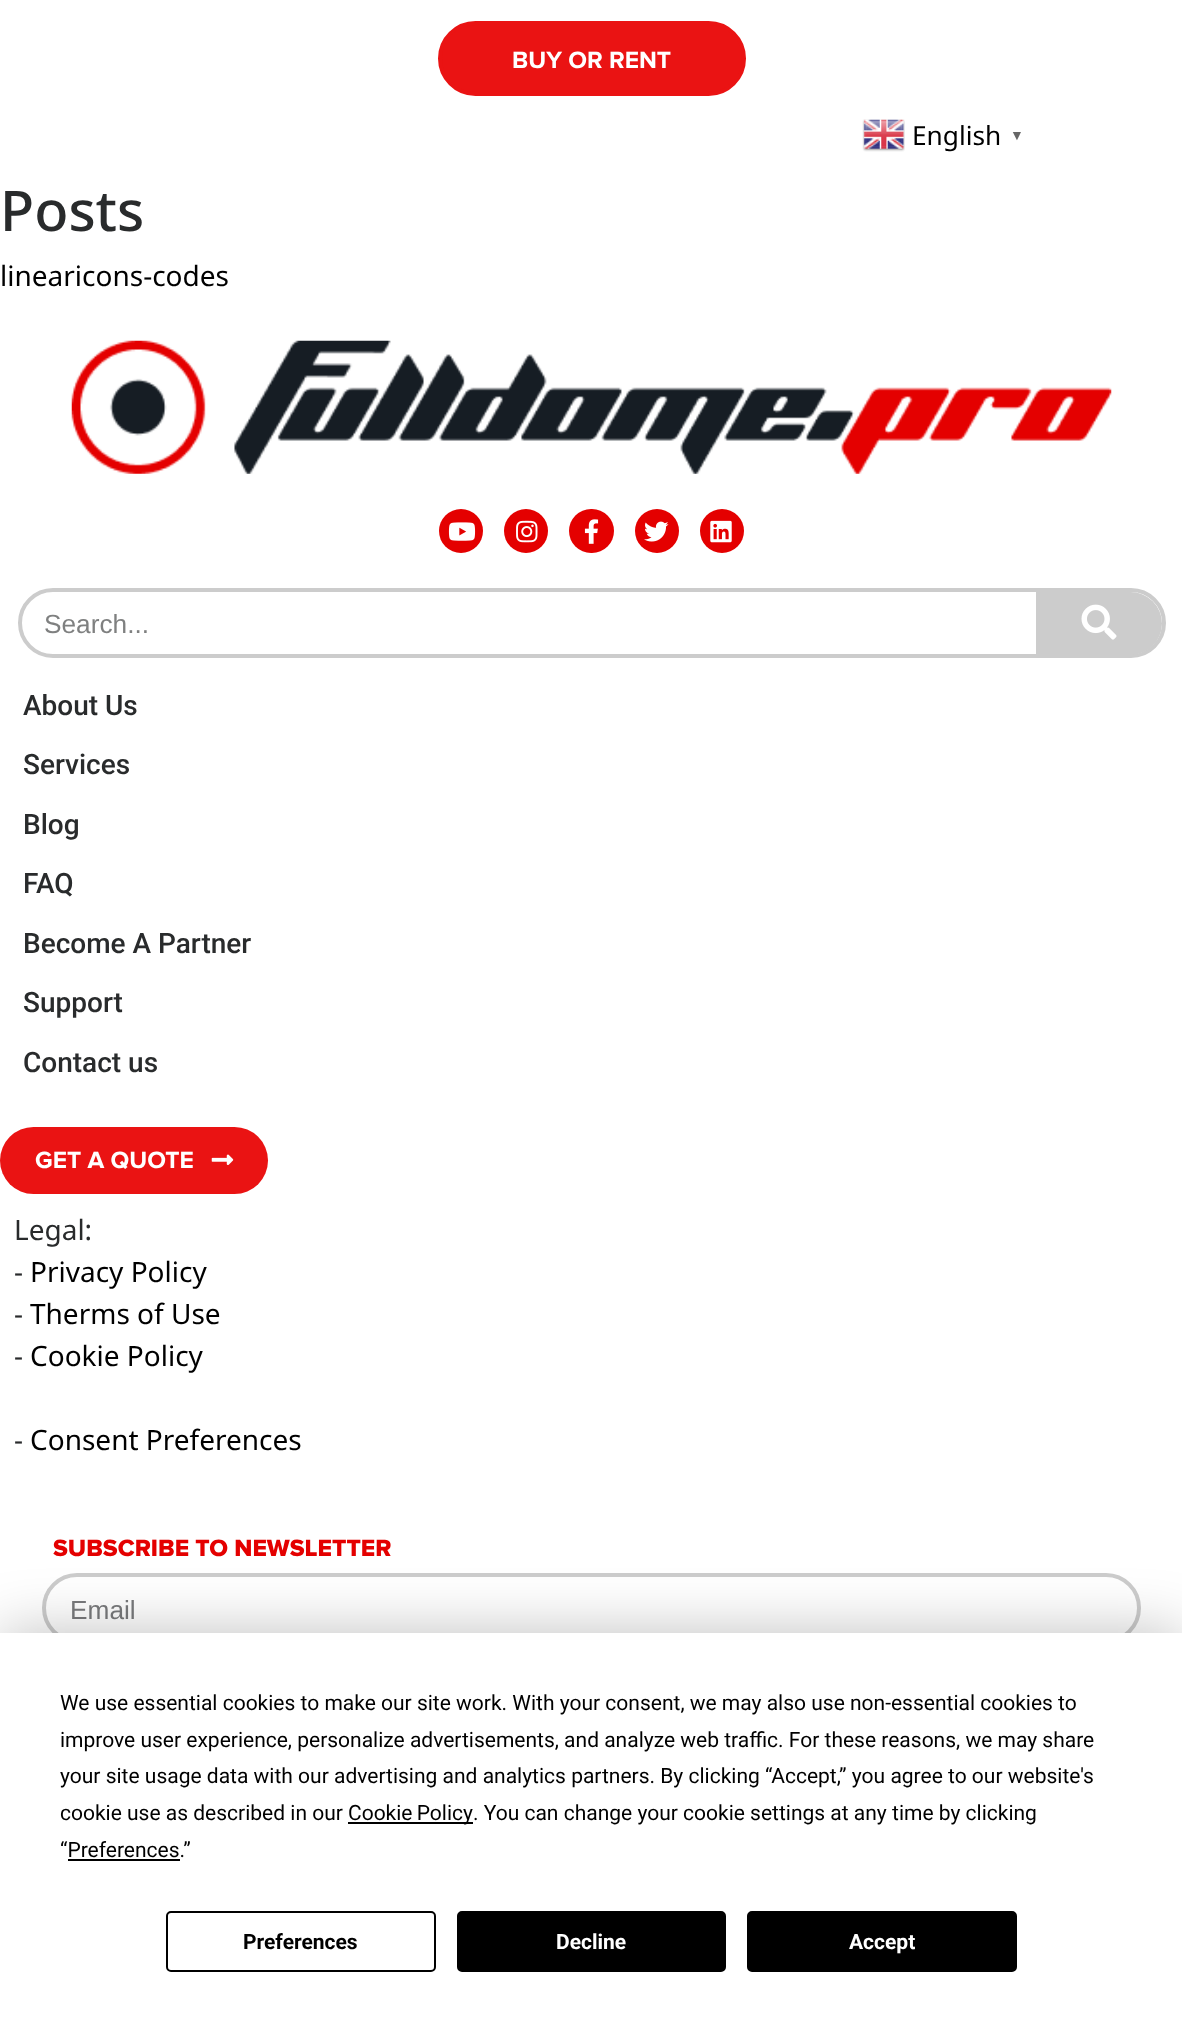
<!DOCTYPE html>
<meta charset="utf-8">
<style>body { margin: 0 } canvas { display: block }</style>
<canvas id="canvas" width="1182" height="2024"></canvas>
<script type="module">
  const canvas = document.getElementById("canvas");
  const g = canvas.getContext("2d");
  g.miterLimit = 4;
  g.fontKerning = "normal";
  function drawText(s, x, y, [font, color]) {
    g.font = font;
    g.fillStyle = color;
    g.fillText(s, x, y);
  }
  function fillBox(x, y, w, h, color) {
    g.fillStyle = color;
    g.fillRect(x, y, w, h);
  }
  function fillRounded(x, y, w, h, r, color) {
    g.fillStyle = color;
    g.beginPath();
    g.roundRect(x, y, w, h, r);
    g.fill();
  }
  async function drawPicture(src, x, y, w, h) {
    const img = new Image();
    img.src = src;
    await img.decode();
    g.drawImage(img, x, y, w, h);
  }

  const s1 = ["bold 24.5px Proxima Nova", "#FFFFFF"];
  const s2 = ["26.25px Noto Sans", "#000000"];
  const s3 = ["bold 14px Liberation Sans", "#666666"];
  const s4 = ["500 56px Noto Sans", "#292B2C"];
  const s5 = ["28px Noto Sans", "#000000"];
  const s6 = ["26.25px Liberation Sans", "#7F8080"];
  const s7 = ["500 28px Roboto", "#292B2C"];
  const s8 = ["28px Noto Sans", "#292B2C"];
  const s9 = ["800 24.5px Proxima Nova", "#E40000"];
  const s10 = ["26.25px Liberation Sans", "#797A7C"];
  const s11 = ["21px Roboto", "#000000"];
  const s12 = ["bold 21px Roboto", "#000000"];
  const s13 = ["bold 21px Roboto", "#FFFFFF"];

  fillBox(0, 0, 1182, 2024, "#FFFFFF");
  g.fillStyle = "#EA1313";
  g.beginPath();
  g.roundRect(440, 23, 304, 71, 35.5);
  g.fill();
  g.strokeStyle = "#EA1313";
  g.lineWidth = 4;
  g.stroke();
  drawText("BUY OR RENT", 512, 68, s1);
  await drawPicture("pic1.png", 862, 119, 43, 33);
  drawText("English", 912, 145, s2);
  drawText("▼", 1010, 140, s3);
  drawText("Posts", 0, 231, s4);
  drawText("linearicons-codes", 0, 286, s5);
  await drawPicture("pic2.png", 71, 340, 1041, 134);
  g.fillStyle = "#E40000";
  g.beginPath();
  g.arc(461, 531, 22, 0, Math.PI * 2);
  g.fill();
  await drawPicture("pic3.png", 448, 522, 28, 19);
  g.beginPath();
  g.arc(526, 531, 22, 0, Math.PI * 2);
  g.fill();
  await drawPicture("pic4.png", 516, 520, 22, 23);
  fillRounded(569, 509, 45, 44, 22, "#E40000");
  await drawPicture("pic5.png", 584, 519, 15, 25);
  g.beginPath();
  g.arc(657, 531, 22, 0, Math.PI * 2);
  g.fill();
  await drawPicture("pic6.png", 644, 521, 25, 21);
  g.beginPath();
  g.arc(722, 531, 22, 0, Math.PI * 2);
  g.fill();
  await drawPicture("pic7.png", 710, 520, 22, 23);
  g.beginPath();
  g.roundRect(20, 590, 1144, 66, 33);
  g.strokeStyle = "#CCCCCC";
  g.stroke();
  drawText("Search...", 44, 633, s6);
  g.fillStyle = "#CCCCCC";
  g.beginPath();
  g.roundRect(1036, 592, 126, 63, [0, 31.5, 31.5, 0]);
  g.fill();
  await drawPicture("pic8.png", 1081, 604, 36, 36);
  drawText("About Us", 23, 715, s7);
  drawText("Services", 23, 774, s7);
  drawText("Blog", 23, 834, s7);
  drawText("FAQ", 23, 893, s7);
  drawText("Become A Partner", 23, 953, s7);
  drawText("Support", 23, 1012, s7);
  drawText("Contact us", 23, 1072, s7);
  fillRounded(0, 1127, 268, 67, 33.5, "#EA1313");
  drawText("GET A QUOTE", 35, 1168, s1);
  await drawPicture("pic9.png", 211, 1154, 23, 11);
  drawText("Legal:", 14, 1240, s8);
  drawText("-", 14, 1282, s8);
  drawText("Privacy Policy", 30, 1282, s5);
  drawText("-", 14, 1324, s8);
  drawText("Therms of Use", 30, 1324, s5);
  drawText("-", 14, 1366, s8);
  drawText("Cookie Policy", 30, 1366, s5);
  drawText("-", 14, 1450, s8);
  drawText("Consent Preferences", 30, 1450, s5);
  drawText("SUBSCRIBE TO NEWSLETTER", 53, 1556, s9);
  g.beginPath();
  g.roundRect(44, 1575, 1095, 66, 33);
  g.stroke();
  drawText("Email", 70, 1619, s10);
  g.fillStyle = "rgba(0, 0, 0, 0.25)";
  g.filter = "blur(30.5px)";
  g.beginPath();
  g.rect(0, 1633, 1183, 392);
  g.fill();
  g.filter = "none";
  fillBox(0, 1633, 1182, 391, "#FFFFFF");
  drawText("We use essential cookies to make our site work. With your consent, we may also use non-essential cookies to", 60, 1710, s11);
  drawText("improve user experience, personalize advertisements, and analyze web traffic. For these reasons, we may share", 60, 1747, s11);
  drawText("your site usage data with our advertising and analytics partners. By clicking “Accept,” you agree to our website's", 60, 1783, s11);
  drawText("cookie use as described in our", 60, 1820, s11);
  fillBox(348, 1822, 125, 2, "#000000");
  g.wordSpacing = "-1px";
  drawText("Cookie Policy", 348, 1820, s11);
  g.wordSpacing = "0px";
  drawText(". You can change your cookie settings at any time by clicking", 473, 1820, s11);
  drawText("“Preferences.”", 60, 1857, s11);
  fillBox(68, 1859, 112, 2, "#000000");
  g.beginPath();
  g.roundRect(167, 1912, 268, 59, 4);
  g.strokeStyle = "#000000";
  g.lineWidth = 2;
  g.stroke();
  drawText("Preferences", 243, 1949, s12);
  g.beginPath();
  g.roundRect(458, 1912, 267, 59, 4);
  g.fill();
  g.stroke();
  drawText("Decline", 556, 1949, s13);
  g.fillStyle = "#000000";
  g.beginPath();
  g.roundRect(748, 1912, 268, 59, 4);
  g.fill();
  g.stroke();
  drawText("Accept", 849, 1949, s13);
</script>
